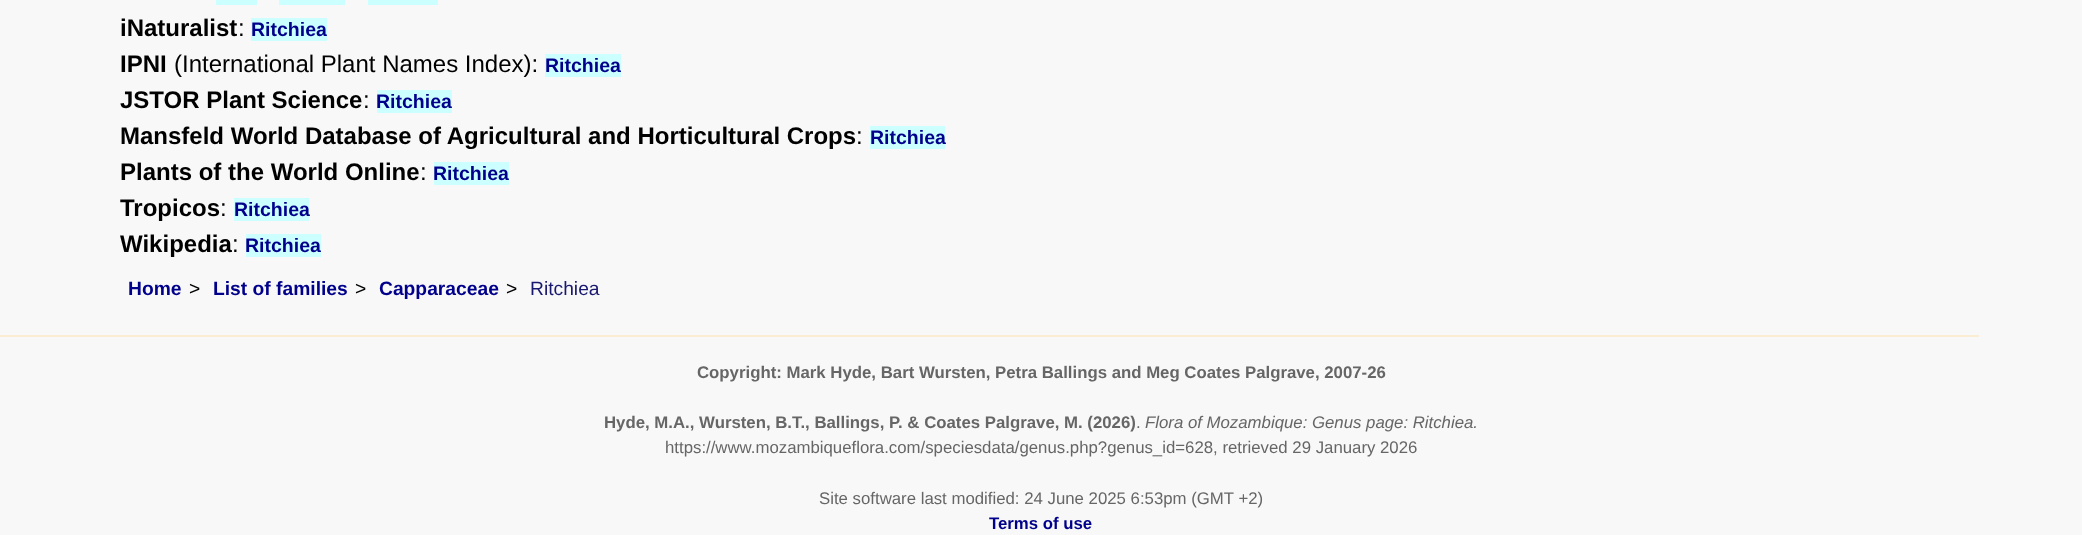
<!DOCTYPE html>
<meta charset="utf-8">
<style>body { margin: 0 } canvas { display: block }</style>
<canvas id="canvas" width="2082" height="535"></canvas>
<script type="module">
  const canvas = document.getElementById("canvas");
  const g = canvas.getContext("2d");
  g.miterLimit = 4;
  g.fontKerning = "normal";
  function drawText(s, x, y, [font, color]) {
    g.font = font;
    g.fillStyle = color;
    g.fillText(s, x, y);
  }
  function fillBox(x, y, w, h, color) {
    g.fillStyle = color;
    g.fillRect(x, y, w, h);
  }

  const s1 = ["bold 24px Liberation Sans", "#000000"];
  const s2 = ["24px Liberation Sans", "#000000"];
  const s3 = ["bold 19.5px Liberation Sans", "#00008B"];
  const s4 = ["bold 19.25px Liberation Sans", "#00008B"];
  const s5 = ["19.25px Liberation Sans", "#000000"];
  const s6 = ["19.25px Liberation Sans", "#191970"];
  const s7 = ["bold 16.8px Liberation Sans", "#666666"];
  const s8 = ["16.8px Liberation Sans", "#666666"];
  const s9 = ["italic 16.8px Liberation Sans", "#666666"];
  const s10 = ["bold 16.8px Liberation Sans", "#00008B"];

  fillBox(0, 0, 2082, 535, "#F8F8F8");
  fillBox(216, 0, 41, 5, "#CCFFFF");
  fillBox(279, 0, 66, 5, "#CCFFFF");
  fillBox(368, 0, 70, 5, "#CCFFFF");
  drawText("iNaturalist", 120, 36, s1);
  drawText(":", 238, 36, s2);
  fillBox(251, 18, 76, 23, "#CCFFFF");
  drawText("Ritchiea", 251, 36, s3);
  drawText("IPNI", 120, 72, s1);
  drawText("(International Plant Names Index):", 174, 72, s2);
  fillBox(545, 54, 76, 23, "#CCFFFF");
  drawText("Ritchiea", 545, 72, s3);
  drawText("JSTOR Plant Science", 120, 108, s1);
  drawText(":", 363, 108, s2);
  fillBox(377, 90, 75, 23, "#CCFFFF");
  drawText("Ritchiea", 376, 108, s3);
  drawText("Mansfeld World Database of Agricultural and Horticultural Crops", 120, 144, s1);
  drawText(":", 856, 144, s2);
  fillBox(870, 126, 75, 23, "#CCFFFF");
  drawText("Ritchiea", 870, 144, s3);
  drawText("Plants of the World Online", 120, 180, s1);
  drawText(":", 420, 180, s2);
  fillBox(434, 162, 75, 23, "#CCFFFF");
  drawText("Ritchiea", 433, 180, s3);
  drawText("Tropicos", 120, 216, s1);
  drawText(":", 220, 216, s2);
  fillBox(234, 198, 75, 23, "#CCFFFF");
  drawText("Ritchiea", 234, 216, s3);
  drawText("Wikipedia", 120, 252, s1);
  drawText(":", 232, 252, s2);
  fillBox(246, 234, 75, 23, "#CCFFFF");
  drawText("Ritchiea", 245, 252, s3);
  drawText("Home", 128, 295, s4);
  drawText(">", 189, 295, s5);
  drawText("List of families", 213, 295, s4);
  drawText(">", 355, 295, s5);
  drawText("Capparaceae", 379, 295, s4);
  drawText(">", 506, 295, s5);
  drawText("Ritchiea", 530, 295, s6);
  fillBox(0, 335, 1979, 2, "#FAEDD4");
  drawText("Copyright: Mark Hyde, Bart Wursten, Petra Ballings and Meg Coates Palgrave, 2007-26", 697, 378, s7);
  drawText("Hyde, M.A., Wursten, B.T., Ballings, P. & Coates Palgrave, M. (2026)", 604, 428, s7);
  drawText(".", 1136, 428, s8);
  drawText("Flora of Mozambique: Genus page: Ritchiea.", 1145, 428, s9);
  drawText("https://www.mozambiqueflora.com/speciesdata/genus.php?genus_id=628, retrieved 29 January 2026", 665, 453, s8);
  drawText("Site software last modified: 24 June 2025 6:53pm (GMT +2)", 819, 504, s8);
  drawText("Terms of use", 989, 529, s10);
</script>
